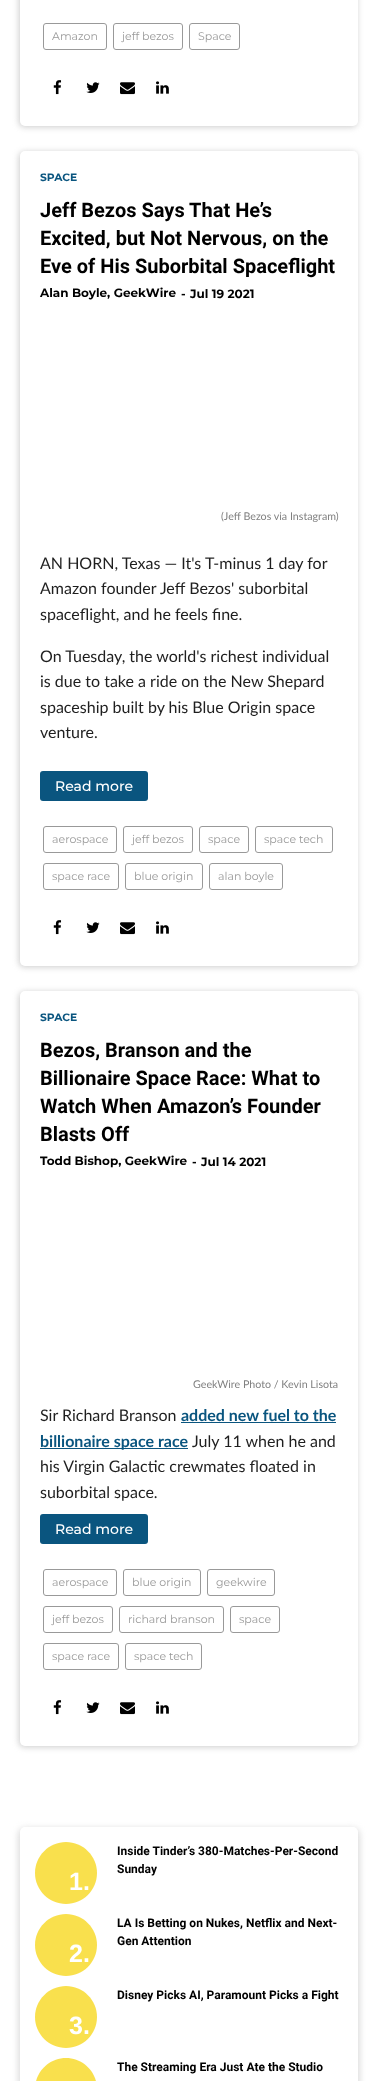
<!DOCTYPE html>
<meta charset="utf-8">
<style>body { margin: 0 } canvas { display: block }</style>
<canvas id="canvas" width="378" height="2081"></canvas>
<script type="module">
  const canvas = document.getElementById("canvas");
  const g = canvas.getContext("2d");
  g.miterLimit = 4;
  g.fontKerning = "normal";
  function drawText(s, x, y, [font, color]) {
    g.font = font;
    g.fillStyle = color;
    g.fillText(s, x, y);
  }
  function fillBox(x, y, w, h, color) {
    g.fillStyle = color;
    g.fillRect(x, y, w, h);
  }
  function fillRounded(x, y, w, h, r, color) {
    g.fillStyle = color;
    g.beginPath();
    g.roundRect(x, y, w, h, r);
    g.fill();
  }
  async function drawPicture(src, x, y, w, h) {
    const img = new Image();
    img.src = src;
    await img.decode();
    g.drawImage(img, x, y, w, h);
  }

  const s1 = ["11px Montserrat", "#999999"];
  const s2 = ["bold 10.7px Montserrat", "#0A557F"];
  const s3 = ["bold 20px Roboto", "#000000"];
  const s4 = ["bold 12px Montserrat", "#000000"];
  const s5 = ["10.7px Lato", "#808080"];
  const s6 = ["16px Lato", "#1F1F1F"];
  const s7 = ["500 14px Montserrat", "#FFFFFF"];
  const s8 = ["bold 16px Lato", "#0A557F"];
  const s9 = ["bold 12px Roboto", "#000000"];
  const s10 = ["bold 25px Liberation Sans", "#FFFFFF"];

  fillBox(0, 0, 378, 2081, "#FFFFFF");
  g.fillStyle = "#CCCCCC";
  g.filter = "blur(3px)";
  g.beginPath();
  g.roundRect(19, -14, 338, 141, 5);
  g.fill();
  g.filter = "none";
  fillRounded(20, -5, 338, 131, 5, "#FFFFFF");
  g.beginPath();
  g.roundRect(43.5, 23.5, 63, 26, 2.5);
  g.strokeStyle = "#999999";
  g.stroke();
  drawText("Amazon", 52, 40, s1);
  g.beginPath();
  g.roundRect(113.5, 23.5, 69, 26, 2.5);
  g.stroke();
  drawText("jeff bezos", 122, 40, s1);
  g.beginPath();
  g.roundRect(189.5, 23.5, 50, 26, 2.5);
  g.stroke();
  drawText("Space", 198, 40, s1);
  await drawPicture("pic1.png", 53, 80, 9, 15);
  await drawPicture("pic2.png", 86, 82, 14, 11);
  await drawPicture("pic3.png", 120, 82, 15, 13);
  await drawPicture("pic4.png", 156, 81, 13, 13);
  g.fillStyle = "#CCCCCC";
  g.filter = "blur(3px)";
  g.beginPath();
  g.roundRect(19, 152, 338, 815, 5);
  g.fill();
  g.filter = "none";
  fillRounded(20, 151, 338, 815, 5, "#FFFFFF");
  drawText("SPACE", 40, 181, s2);
  drawText("Jeff Bezos Says That He’s", 40, 217, s3);
  drawText("Excited, but Not Nervous, on the", 40, 245, s3);
  drawText("Eve of His Suborbital Spaceflight", 40, 273, s3);
  drawText("Alan Boyle, GeekWire", 40, 297, s4);
  drawText("-", 181, 298, s4);
  drawText("Jul 19 2021", 190, 298, s4);
  drawText("(Jeff Bezos via Instagram)", 221, 520, s5);
  drawText("AN HORN, Texas — It's T-minus 1 day for", 40, 569, s6);
  drawText("Amazon founder Jeff Bezos' suborbital", 40, 594, s6);
  drawText("spaceflight, and he feels fine.", 40, 620, s6);
  drawText("On Tuesday, the world's richest individual", 40, 662, s6);
  drawText("is due to take a ride on the New Shepard", 40, 687, s6);
  drawText("spaceship built by his Blue Origin space", 40, 713, s6);
  drawText("venture.", 40, 738, s6);
  fillRounded(40, 771, 108, 30, 3, "#0A557F");
  drawText("Read more", 55, 791, s7);
  g.beginPath();
  g.roundRect(43.5, 826.5, 73, 26, 2.5);
  g.stroke();
  drawText("aerospace", 52, 843, s1);
  g.beginPath();
  g.roundRect(123.5, 826.5, 69, 26, 2.5);
  g.stroke();
  drawText("jeff bezos", 132, 843, s1);
  g.beginPath();
  g.roundRect(199.5, 826.5, 49, 26, 2.5);
  g.stroke();
  drawText("space", 208, 843, s1);
  g.beginPath();
  g.roundRect(255.5, 826.5, 77, 26, 2.5);
  g.stroke();
  drawText("space tech", 264, 843, s1);
  g.beginPath();
  g.roundRect(43.5, 863.5, 75, 26, 2.5);
  g.stroke();
  drawText("space race", 52, 880, s1);
  g.beginPath();
  g.roundRect(125.5, 863.5, 77, 26, 2.5);
  g.stroke();
  drawText("blue origin", 134, 880, s1);
  g.beginPath();
  g.roundRect(209.5, 863.5, 73, 26, 2.5);
  g.stroke();
  drawText("alan boyle", 218, 880, s1);
  await drawPicture("pic1.png", 53, 920, 9, 15);
  await drawPicture("pic2.png", 86, 922, 14, 11);
  await drawPicture("pic3.png", 120, 922, 15, 13);
  await drawPicture("pic4.png", 156, 921, 13, 13);
  g.fillStyle = "#CCCCCC";
  g.filter = "blur(3px)";
  g.beginPath();
  g.roundRect(19, 992, 338, 755, 5);
  g.fill();
  g.filter = "none";
  fillRounded(20, 991, 338, 755, 5, "#FFFFFF");
  drawText("SPACE", 40, 1021, s2);
  drawText("Bezos, Branson and the", 40, 1057, s3);
  drawText("Billionaire Space Race: What to", 40, 1085, s3);
  drawText("Watch When Amazon’s Founder", 40, 1113, s3);
  drawText("Blasts Off", 40, 1141, s3);
  drawText("Todd Bishop, GeekWire", 40, 1165, s4);
  drawText("-", 192, 1166, s4);
  drawText("Jul 14 2021", 201, 1166, s4);
  drawText("GeekWire Photo / Kevin Lisota", 193, 1388, s5);
  drawText("Sir Richard Branson", 40, 1421, s6);
  drawText("added new fuel to the", 181, 1421, s8);
  fillBox(181, 1422, 155, 1, "#0A557F");
  fillBox(40, 1448, 148, 1, "#0A557F");
  drawText("billionaire space race", 40, 1447, s8);
  drawText("July 11 when he and", 192, 1447, s6);
  drawText("his Virgin Galactic crewmates floated in", 40, 1472, s6);
  drawText("suborbital space.", 40, 1498, s6);
  fillRounded(40, 1514, 108, 30, 3, "#0A557F");
  drawText("Read more", 55, 1534, s7);
  g.beginPath();
  g.roundRect(43.5, 1569.5, 73, 26, 2.5);
  g.stroke();
  drawText("aerospace", 52, 1586, s1);
  g.beginPath();
  g.roundRect(123.5, 1569.5, 77, 26, 2.5);
  g.stroke();
  drawText("blue origin", 132, 1586, s1);
  g.beginPath();
  g.roundRect(207.5, 1569.5, 67, 26, 2.5);
  g.stroke();
  drawText("geekwire", 216, 1586, s1);
  g.beginPath();
  g.roundRect(43.5, 1606.5, 69, 26, 2.5);
  g.stroke();
  drawText("jeff bezos", 52, 1623, s1);
  g.beginPath();
  g.roundRect(119.5, 1606.5, 104, 26, 2.5);
  g.stroke();
  drawText("richard branson", 128, 1623, s1);
  g.beginPath();
  g.roundRect(230.5, 1606.5, 49, 26, 2.5);
  g.stroke();
  drawText("space", 239, 1623, s1);
  g.beginPath();
  g.roundRect(43.5, 1643.5, 75, 26, 2.5);
  g.stroke();
  drawText("space race", 52, 1660, s1);
  g.beginPath();
  g.roundRect(125.5, 1643.5, 76, 26, 2.5);
  g.stroke();
  drawText("space tech", 134, 1660, s1);
  await drawPicture("pic1.png", 53, 1700, 9, 15);
  await drawPicture("pic2.png", 86, 1702, 14, 11);
  await drawPicture("pic3.png", 120, 1702, 15, 13);
  await drawPicture("pic4.png", 156, 1701, 13, 13);
  g.fillStyle = "#DDDDDD";
  g.filter = "blur(3px)";
  g.beginPath();
  g.roundRect(18, 1828, 342, 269, 7);
  g.fill();
  g.filter = "none";
  fillRounded(20, 1827, 338, 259, 5, "#FFFFFF");
  g.fillStyle = "#F9E04D";
  g.beginPath();
  g.moveTo(66, 1842);
  g.bezierCurveTo(49, 1842, 35, 1856, 35, 1873);
  g.bezierCurveTo(35, 1890, 49, 1904, 66, 1904);
  g.bezierCurveTo(83, 1904, 97, 1890, 97, 1873);
  g.bezierCurveTo(97, 1856, 83, 1842, 66, 1842);
  g.closePath();
  g.fill();
  drawText("Inside Tinder’s 380-Matches-Per-Second", 117, 1855, s9);
  drawText("Sunday", 117, 1873, s9);
  drawText("1.", 69, 1890, s10);
  g.fillStyle = "#F9E04D";
  g.beginPath();
  g.moveTo(66, 1914);
  g.bezierCurveTo(49, 1914, 35, 1928, 35, 1945);
  g.bezierCurveTo(35, 1962, 49, 1976, 66, 1976);
  g.bezierCurveTo(83, 1976, 97, 1962, 97, 1945);
  g.bezierCurveTo(97, 1928, 83, 1914, 66, 1914);
  g.closePath();
  g.fill();
  drawText("LA Is Betting on Nukes, Netflix and Next-", 117, 1927, s9);
  drawText("Gen Attention", 117, 1945, s9);
  drawText("2.", 69, 1962, s10);
  g.fillStyle = "#F9E04D";
  g.beginPath();
  g.moveTo(66, 1986);
  g.bezierCurveTo(49, 1986, 35, 2000, 35, 2017);
  g.bezierCurveTo(35, 2034, 49, 2048, 66, 2048);
  g.bezierCurveTo(83, 2048, 97, 2034, 97, 2017);
  g.bezierCurveTo(97, 2000, 83, 1986, 66, 1986);
  g.closePath();
  g.fill();
  drawText("Disney Picks AI, Paramount Picks a Fight", 117, 1999, s9);
  drawText("3.", 69, 2034, s10);
  g.fillStyle = "#F9E04D";
  g.beginPath();
  g.moveTo(66, 2058);
  g.bezierCurveTo(49, 2058, 35, 2072, 35, 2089);
  g.bezierCurveTo(35, 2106, 49, 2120, 66, 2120);
  g.bezierCurveTo(83, 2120, 97, 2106, 97, 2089);
  g.bezierCurveTo(97, 2072, 83, 2058, 66, 2058);
  g.closePath();
  g.fill();
  drawText("The Streaming Era Just Ate the Studio", 117, 2071, s9);
</script>
